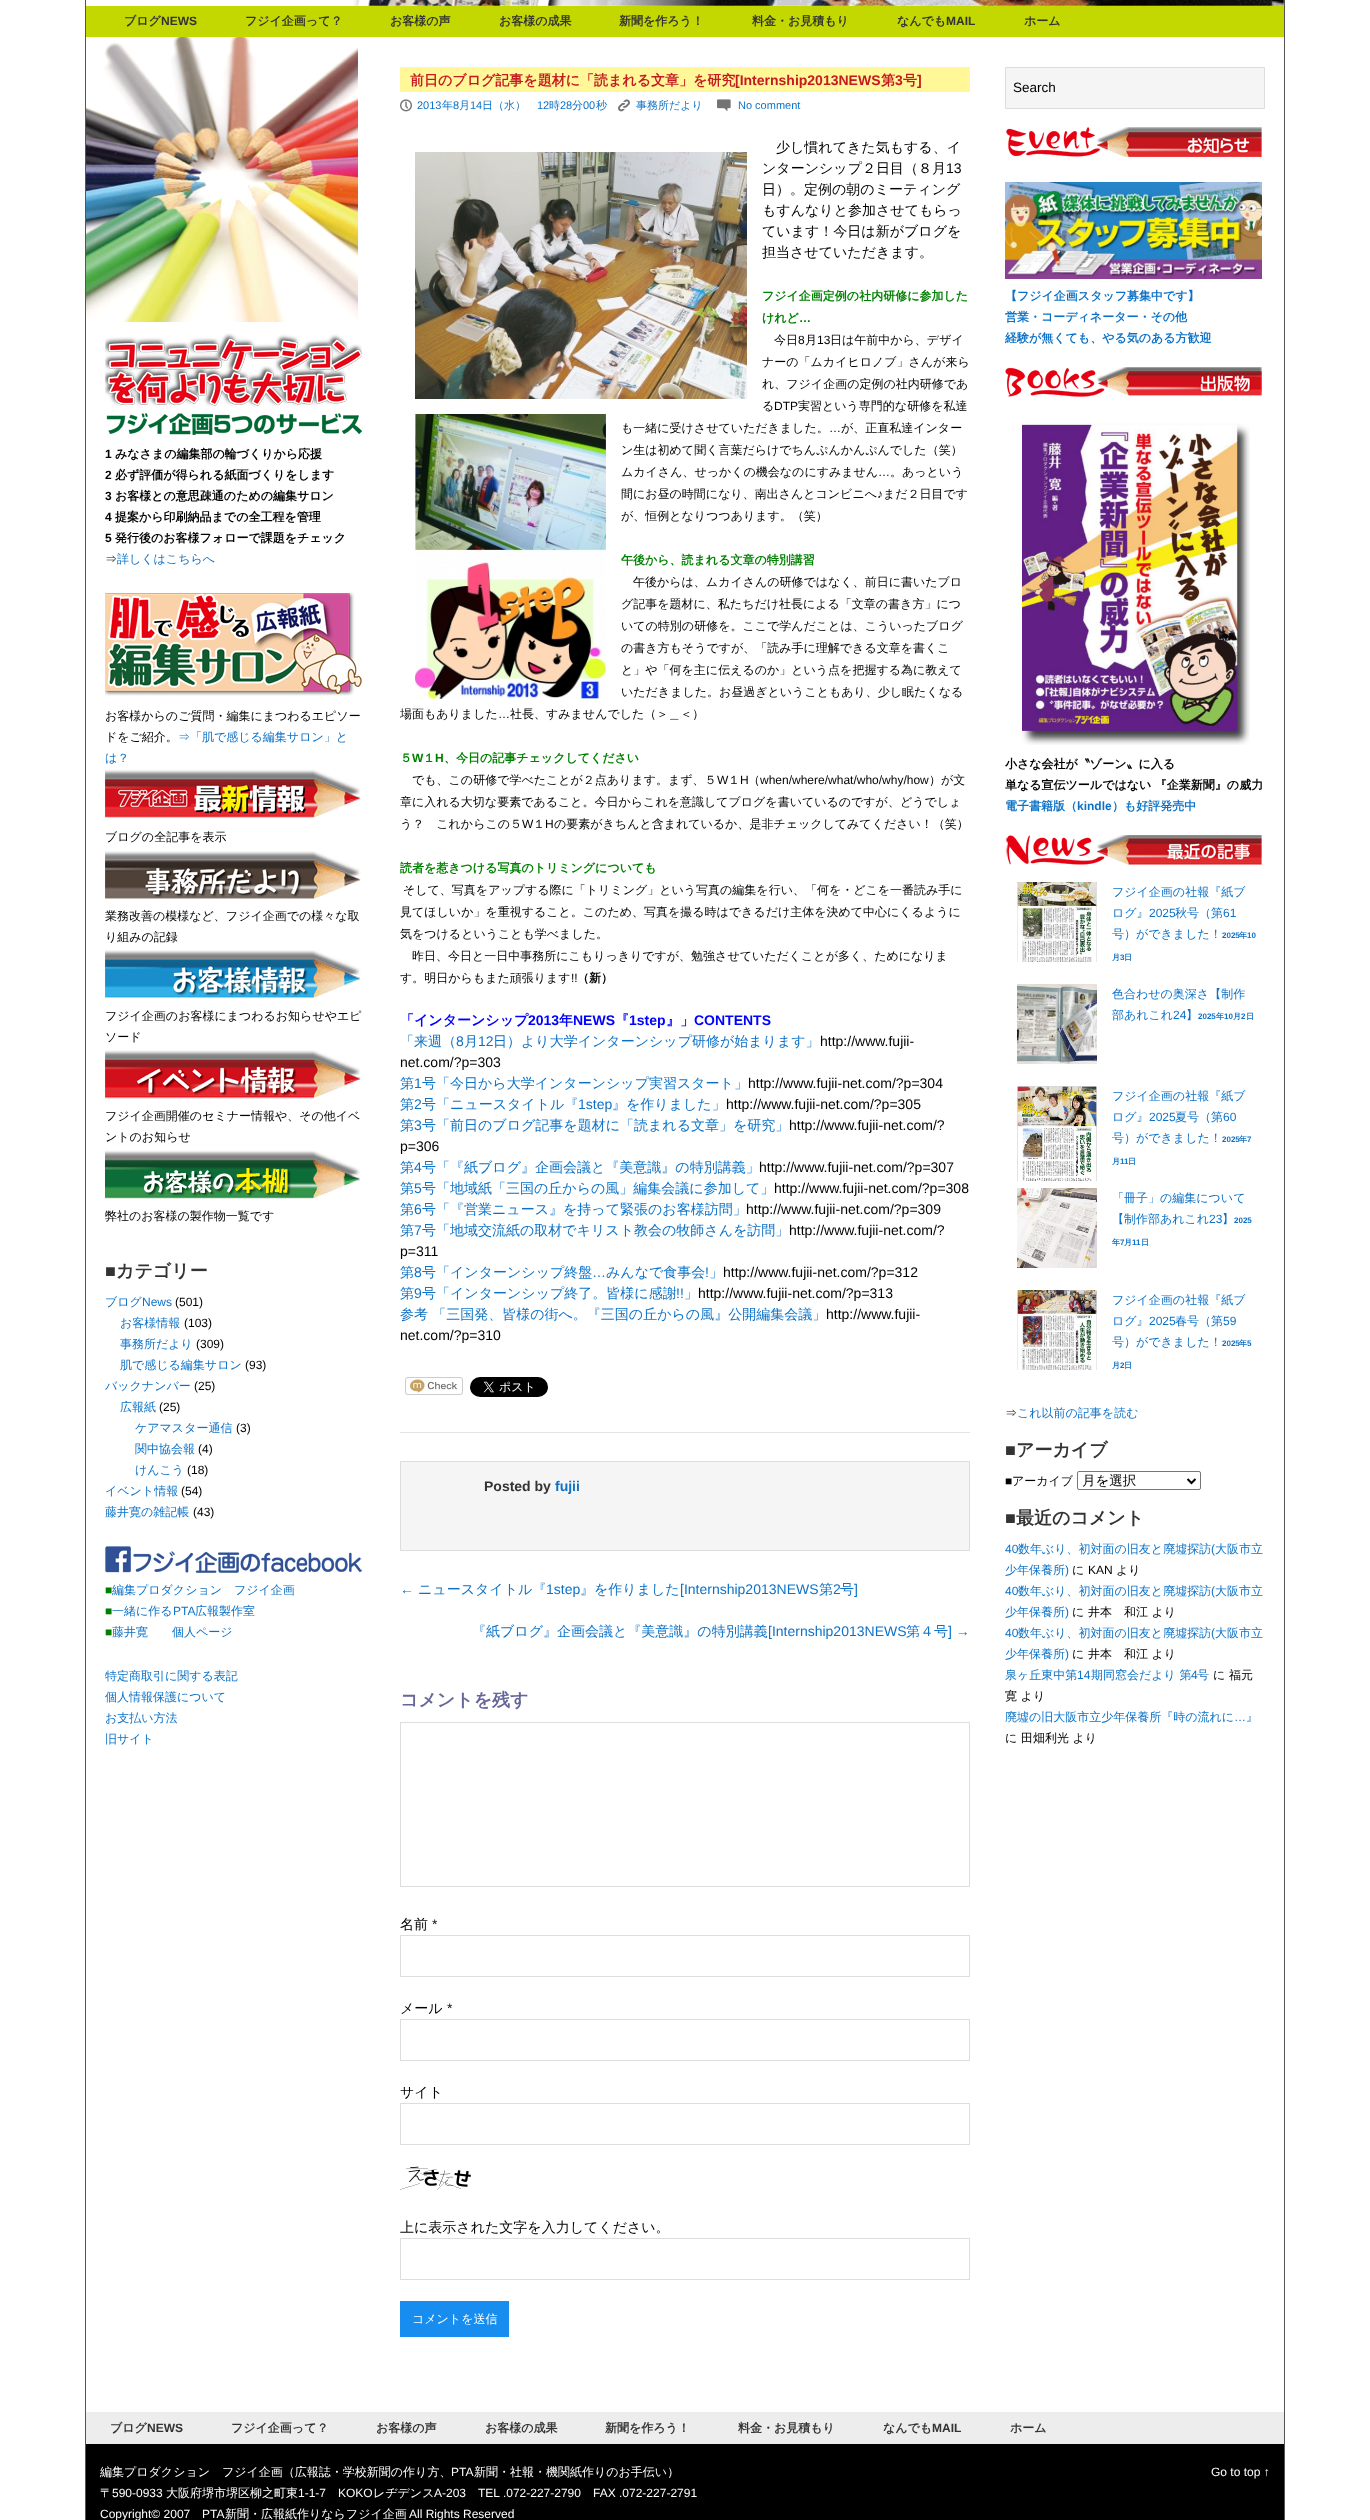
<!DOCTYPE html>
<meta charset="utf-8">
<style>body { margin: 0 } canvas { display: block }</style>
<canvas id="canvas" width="1370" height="2520"></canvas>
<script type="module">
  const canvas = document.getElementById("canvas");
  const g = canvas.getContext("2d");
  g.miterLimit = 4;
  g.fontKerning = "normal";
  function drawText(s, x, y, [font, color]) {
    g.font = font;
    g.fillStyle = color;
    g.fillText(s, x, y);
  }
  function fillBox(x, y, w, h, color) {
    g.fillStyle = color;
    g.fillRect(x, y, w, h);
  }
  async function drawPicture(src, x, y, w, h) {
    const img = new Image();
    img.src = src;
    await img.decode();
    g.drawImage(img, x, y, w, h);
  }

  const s1 = ["bold 12px WenQuanYi Zen Hei", "#333333"];
  const s2 = ["bold 12px Liberation Sans", "#333333"];
  const s3 = ["bold 12px Liberation Sans", "#000000"];
  const s4 = ["bold 12px WenQuanYi Zen Hei", "#000000"];
  const s5 = ["500 12px WenQuanYi Zen Hei", "#000000"];
  const s6 = ["500 12px WenQuanYi Zen Hei", "#0D72C7"];
  const s7 = ["bold 18px Liberation Sans", "#333333"];
  const s8 = ["bold 18px WenQuanYi Zen Hei", "#333333"];
  const s9 = ["12px Liberation Sans", "#0D72C7"];
  const s10 = ["12px Liberation Sans", "#000000"];
  const s11 = ["12px Liberation Sans", "#008000"];
  const s12 = ["bold 14px WenQuanYi Zen Hei", "#C61A22"];
  const s13 = ["bold 14px Liberation Sans", "#C61A22"];
  const s14 = ["11px Liberation Sans", "#0D72C7"];
  const s15 = ["500 11px WenQuanYi Zen Hei", "#0D72C7"];
  const s16 = ["500 14px WenQuanYi Zen Hei", "#000000"];
  const s17 = ["14px Liberation Sans", "#000000"];
  const s18 = ["bold 12px WenQuanYi Zen Hei", "#008000"];
  const s19 = ["bold 12px Liberation Sans", "#008000"];
  const s20 = ["bold 14px WenQuanYi Zen Hei", "#0000FF"];
  const s21 = ["bold 14px Liberation Sans", "#0000FF"];
  const s22 = ["500 14px WenQuanYi Zen Hei", "#0D72C7"];
  const s23 = ["14px Liberation Sans", "#0D72C7"];
  const s24 = ["bold 14px Liberation Sans", "#333333"];
  const s25 = ["bold 14px Liberation Sans", "#0D72C7"];
  const s26 = ["bold 18px WenQuanYi Zen Hei", "#666699"];
  const s27 = ["500 12px WenQuanYi Zen Hei", "#FFFFFF"];
  const s28 = ["13.5px Liberation Sans", "#000000"];
  const s29 = ["bold 12px WenQuanYi Zen Hei", "#0D72C7"];
  const s30 = ["bold 12px Liberation Sans", "#0D72C7"];
  const s31 = ["bold 8px Liberation Sans", "#0D72C7"];
  const s32 = ["bold 8px WenQuanYi Zen Hei", "#0D72C7"];
  const s33 = ["500 13.5px WenQuanYi Zen Hei", "#000000"];
  const s34 = ["12px Liberation Sans", "#FFFFFF"];

  fillBox(0, 0, 1370, 2520, "#FFFFFF");
  fillBox(1284, 0, 1, 2520, "#555555");
  fillBox(85, 0, 1, 2520, "#555555");
  await drawPicture("pic1.png", 86, 0, 1198, 6);
  fillBox(86, 6, 1198, 31, "#C3D700");
  drawText("ブログ", 124, 25, s1);
  drawText("NEWS", 161, 25, s2);
  drawText("フジイ企画って？", 245, 25, s1);
  drawText("お客様の声", 390, 25, s1);
  drawText("お客様の成果", 499, 25, s1);
  drawText("新聞を作ろう！", 619, 25, s1);
  drawText("料金・お見積もり", 752, 25, s1);
  drawText("なんでも", 897, 25, s1);
  drawText("MAIL", 946, 25, s2);
  drawText("ホーム", 1024, 25, s1);
  await drawPicture("pic2.png", 86, 37, 272, 285);
  await drawPicture("pic3.png", 105, 333, 257, 102);
  drawText("1", 105, 458, s3);
  drawText("みなさまの編集部の輪づくりから応援", 115, 458, s4);
  drawText("2", 105, 479, s3);
  drawText("必ず評価が得られる紙面づくりをします", 115, 479, s4);
  drawText("3", 105, 500, s3);
  drawText("お客様との意思疎通のための編集サロン", 115, 500, s4);
  drawText("4", 105, 521, s3);
  drawText("提案から印刷納品までの全工程を管理", 115, 521, s4);
  drawText("5", 105, 542, s3);
  drawText("発行後のお客様フォローで課題をチェック", 115, 542, s4);
  drawText("⇒", 105, 563, s5);
  drawText("詳しくはこちらへ", 117, 563, s6);
  await drawPicture("pic4.png", 105, 593, 257, 103);
  drawText("お客様からのご質問・編集にまつわるエピソー", 105, 720, s5);
  drawText("ドをご紹介。", 105, 741, s5);
  drawText("⇒「肌で感じる編集サロン」と", 178, 741, s6);
  drawText("は？", 105, 762, s6);
  await drawPicture("pic5.png", 105, 769, 256, 49);
  drawText("ブログの全記事を表示", 105, 841, s5);
  await drawPicture("pic6.png", 105, 851, 256, 48);
  drawText("業務改善の模様など、フジイ企画での様々な取", 105, 920, s5);
  drawText("り組みの記録", 105, 941, s5);
  await drawPicture("pic7.png", 105, 950, 256, 48);
  drawText("フジイ企画のお客様にまつわるお知らせやエピ", 105, 1020, s5);
  drawText("ソード", 105, 1041, s5);
  await drawPicture("pic8.png", 105, 1050, 256, 49);
  drawText("フジイ企画開催のセミナー情報や、その他イベ", 105, 1120, s5);
  drawText("ントのお知らせ", 105, 1141, s5);
  await drawPicture("pic9.png", 105, 1150, 255, 49);
  drawText("弊社のお客様の製作物一覧です", 105, 1220, s5);
  drawText("■", 105, 1277, s7);
  drawText("カテゴリー", 116, 1277, s8);
  drawText("ブログ", 105, 1306, s6);
  drawText("News", 142, 1306, s9);
  drawText("(501)", 175, 1306, s10);
  drawText("お客様情報", 120, 1327, s6);
  drawText("(103)", 184, 1327, s10);
  drawText("事務所だより", 120, 1348, s6);
  drawText("(309)", 196, 1348, s10);
  drawText("肌で感じる編集サロン", 120, 1369, s6);
  drawText("(93)", 245, 1369, s10);
  drawText("バックナンバー", 105, 1390, s6);
  drawText("(25)", 194, 1390, s10);
  drawText("広報紙", 120, 1411, s6);
  drawText("(25)", 159, 1411, s10);
  drawText("ケアマスター通信", 135, 1432, s6);
  drawText("(3)", 236, 1432, s10);
  drawText("関中協会報", 135, 1453, s6);
  drawText("(4)", 198, 1453, s10);
  drawText("けんこう", 135, 1474, s6);
  drawText("(18)", 187, 1474, s10);
  drawText("イベント情報", 105, 1495, s6);
  drawText("(54)", 181, 1495, s10);
  drawText("藤井寛の雑記帳", 105, 1516, s6);
  drawText("(43)", 193, 1516, s10);
  await drawPicture("pic10.png", 105, 1546, 257, 27);
  drawText("■", 105, 1594, s11);
  drawText("編集プロダクション　フジイ企画", 112, 1594, s6);
  drawText("■", 105, 1615, s11);
  drawText("一緒に作る", 112, 1615, s6);
  drawText("PTA", 173, 1615, s9);
  drawText("広報製作室", 195, 1615, s6);
  drawText("■", 105, 1636, s11);
  drawText("藤井寛　　個人ページ", 112, 1636, s6);
  drawText("特定商取引に関する表記", 105, 1680, s6);
  drawText("個人情報保護について", 105, 1701, s6);
  drawText("お支払い方法", 105, 1722, s6);
  drawText("旧サイト", 105, 1743, s6);
  fillBox(400, 67, 570, 25, "#FFF798");
  drawText("前日のブログ記事を題材に「読まれる文章」を研究", 410, 85, s12);
  drawText("[Internship2013NEWS", 735, 85, s13);
  drawText("第", 881, 85, s12);
  drawText("3", 895, 85, s13);
  drawText("号", 903, 85, s12);
  drawText("]", 917, 85, s13);
  await drawPicture("pic11.png", 400, 99, 12, 13);
  drawText("2013", 417, 109, s14);
  drawText("年", 442, 109, s15);
  drawText("8", 453, 109, s14);
  drawText("月", 459, 109, s15);
  drawText("14", 470, 109, s14);
  drawText("日（水）", 482, 109, s15);
  drawText("12", 537, 109, s14);
  drawText("時", 549, 109, s15);
  drawText("28", 560, 109, s14);
  drawText("分", 572, 109, s15);
  drawText("00", 583, 109, s14);
  drawText("秒", 596, 109, s15);
  await drawPicture("pic12.png", 618, 99, 12, 13);
  drawText("事務所だより", 636, 109, s15);
  await drawPicture("pic13.png", 717, 99, 14, 13);
  drawText("No comment", 738, 109, s14);
  await drawPicture("pic14.png", 415, 152, 332, 247);
  drawText("少し慣れてきた気もする、イ", 776, 152, s16);
  drawText("ンターンシップ２日目（８月", 762, 173, s16);
  drawText("13", 946, 173, s17);
  drawText("日）。定例の朝のミーティング", 762, 194, s16);
  drawText("もすんなりと参加させてもらっ", 762, 215, s16);
  drawText("ています！今日は新がブログを", 762, 236, s16);
  drawText("担当させていただきます。", 762, 257, s16);
  drawText("フジイ企画定例の社内研修に参加した", 762, 300, s18);
  drawText("けれど", 762, 322, s18);
  drawText("…", 799, 322, s19);
  drawText("今日", 774, 344, s5);
  drawText("8", 798, 344, s10);
  drawText("月", 805, 344, s5);
  drawText("13", 817, 344, s10);
  drawText("日は午前中から、デザイ", 830, 344, s5);
  drawText("ナーの「ムカイヒロノブ」さんが来ら", 762, 366, s5);
  drawText("れ、フジイ企画の定例の社内研修であ", 762, 388, s5);
  drawText("る", 762, 410, s5);
  drawText("DTP", 774, 410, s10);
  drawText("実習という専門的な研修を私達", 798, 410, s5);
  drawText("も一緒に受けさせていただきました。", 621, 432, s5);
  drawText("…", 829, 432, s10);
  drawText("が、正直私達インター", 841, 432, s5);
  drawText("ン生は初めて聞く言葉だらけでちんぷんかんぷんでした（笑）", 621, 454, s5);
  drawText("ムカイさん、せっかくの機会なのにすみません", 621, 476, s5);
  drawText("…", 878, 476, s10);
  drawText("。あっという", 890, 476, s5);
  drawText("間にお昼の時間になり、南出さんとコンビニへ", 621, 498, s5);
  drawText("♪", 877, 498, s10);
  drawText("まだ２日目です", 883, 498, s5);
  drawText("が、恒例となりつつあります。（笑）", 621, 520, s5);
  drawText("午後から、読まれる文章の特別講習", 621, 564, s18);
  drawText("午後からは、ムカイさんの研修ではなく、前日に書いたブロ", 633, 586, s5);
  drawText("グ記事を題材に、私たちだけ社長による「文章の書き方」につ", 621, 608, s5);
  drawText("いての特別の研修を。ここで学んだことは、こういったブログ", 621, 630, s5);
  drawText("の書き方もそうですが、「読み手に理解できる文章を書くこ", 621, 652, s5);
  drawText("と」や「何を主に伝えるのか」という点を把握する為に教えて", 621, 674, s5);
  drawText("いただきました。お昼過ぎということもあり、少し眠たくなる", 621, 696, s5);
  drawText("場面もありました", 400, 718, s5);
  drawText("…", 498, 718, s10);
  drawText("社長、すみませんでした（＞＿＜）", 510, 718, s5);
  drawText("５", 400, 762, s18);
  drawText("W", 412, 762, s19);
  drawText("１", 423, 762, s18);
  drawText("H", 435, 762, s19);
  drawText("、今日の記事チェックしてください", 444, 762, s18);
  drawText("でも、この研修で学べたことが２点あります。まず、５", 412, 784, s5);
  drawText("W", 717, 784, s10);
  drawText("１", 728, 784, s5);
  drawText("H", 740, 784, s10);
  drawText("（", 748, 784, s5);
  drawText("when/where/what/who/why/how", 760, 784, s10);
  drawText("）が文", 929, 784, s5);
  drawText("章に入れる大切な要素であること。今日からこれを意識してブログを書いているのですが、どうでしょ", 400, 806, s5);
  drawText("う？　これからこの５", 400, 828, s5);
  drawText("W", 522, 828, s10);
  drawText("１", 533, 828, s5);
  drawText("H", 545, 828, s10);
  drawText("の要素がきちんと含まれているか、是非チェックしてみてください！（笑）", 554, 828, s5);
  drawText("読者を惹きつける写真のトリミングについても", 400, 872, s18);
  drawText("そして、写真をアップする際に「トリミング」という写真の編集を行い、「何を・どこを一番読み手に", 403, 894, s5);
  drawText("見てほしいか」を重視すること。このため、写真を撮る時はできるだけ主体を決めて中心にくるように", 400, 916, s5);
  drawText("気をつけるということも学べました。", 400, 938, s5);
  drawText("昨日、今日と一日中事務所にこもりっきりですが、勉強させていただくことが多く、ためになりま", 412, 960, s5);
  drawText("す。明日からもまた頑張ります", 400, 982, s5);
  drawText("!!", 571, 982, s10);
  drawText("（新）", 577, 982, s4);
  await drawPicture("pic15.png", 415, 414, 191, 285);
  drawText("「インターンシップ", 400, 1025, s20);
  drawText("2013", 528, 1025, s21);
  drawText("年", 559, 1025, s20);
  drawText("NEWS", 573, 1025, s21);
  drawText("『", 615, 1025, s20);
  drawText("1step", 629, 1025, s21);
  drawText("』」", 666, 1025, s20);
  drawText("CONTENTS", 694, 1025, s21);
  drawText("「来週（", 400, 1046, s22);
  drawText("8", 456, 1046, s23);
  drawText("月", 464, 1046, s22);
  drawText("12", 478, 1046, s23);
  drawText("日）より大学インターンシップ研修が始まります」", 493, 1046, s22);
  drawText("http://www.fujii-", 820, 1046, s17);
  drawText("net.com/?p=303", 400, 1067, s17);
  drawText("第", 400, 1088, s22);
  drawText("1", 414, 1088, s23);
  drawText("号「今日から大学インターンシップ実習スタート」", 422, 1088, s22);
  drawText("http://www.fujii-net.com/?p=304", 748, 1088, s17);
  drawText("第", 400, 1109, s22);
  drawText("2", 414, 1109, s23);
  drawText("号「ニュースタイトル『", 422, 1109, s22);
  drawText("1step", 578, 1109, s23);
  drawText("』を作りました」", 612, 1109, s22);
  drawText("http://www.fujii-net.com/?p=305", 726, 1109, s17);
  drawText("第", 400, 1130, s22);
  drawText("3", 414, 1130, s23);
  drawText("号「前日のブログ記事を題材に「読まれる文章」を研究」", 422, 1130, s22);
  drawText("http://www.fujii-net.com/?", 789, 1130, s17);
  drawText("p=306", 400, 1151, s17);
  drawText("第", 400, 1172, s22);
  drawText("4", 414, 1172, s23);
  drawText("号「『紙ブログ』企画会議と『美意識』の特別講義」", 422, 1172, s22);
  drawText("http://www.fujii-net.com/?p=307", 759, 1172, s17);
  drawText("第", 400, 1193, s22);
  drawText("5", 414, 1193, s23);
  drawText("号「地域紙「三国の丘からの風」編集会議に参加して」", 422, 1193, s22);
  drawText("http://www.fujii-net.com/?p=308", 774, 1193, s17);
  drawText("第", 400, 1214, s22);
  drawText("6", 414, 1214, s23);
  drawText("号「『営業ニュース』を持って緊張のお客様訪問」", 422, 1214, s22);
  drawText("http://www.fujii-net.com/?p=309", 746, 1214, s17);
  drawText("第", 400, 1235, s22);
  drawText("7", 414, 1235, s23);
  drawText("号「地域交流紙の取材でキリスト教会の牧師さんを訪問」", 422, 1235, s22);
  drawText("http://www.fujii-net.com/?", 789, 1235, s17);
  drawText("p=311", 400, 1256, s17);
  drawText("第", 400, 1277, s22);
  drawText("8", 414, 1277, s23);
  drawText("号「インターンシップ終盤", 422, 1277, s22);
  drawText("…", 592, 1277, s23);
  drawText("みんなで食事会", 606, 1277, s22);
  drawText("!", 705, 1277, s23);
  drawText("」", 709, 1277, s22);
  drawText("http://www.fujii-net.com/?p=312", 723, 1277, s17);
  drawText("第", 400, 1298, s22);
  drawText("9", 414, 1298, s23);
  drawText("号「インターンシップ終了。皆様に感謝", 422, 1298, s22);
  drawText("!!", 676, 1298, s23);
  drawText("」", 684, 1298, s22);
  drawText("http://www.fujii-net.com/?p=313", 698, 1298, s17);
  drawText("参考 「三国発、皆様の街へ。『三国の丘からの風』公開編集会議」", 400, 1319, s22);
  drawText("http://www.fujii-", 826, 1319, s17);
  drawText("net.com/?p=310", 400, 1340, s17);
  await drawPicture("pic16.png", 405, 1377, 58, 18);
  await drawPicture("pic17.png", 470, 1377, 78, 20);
  fillBox(400, 1432, 570, 1, "#E4E4E4");
  g.fillStyle = "#F5F5F5";
  g.beginPath();
  g.rect(400.5, 1461.5, 569, 89);
  g.fill();
  g.strokeStyle = "#DDDDDD";
  g.stroke();
  drawText("Posted by", 484, 1491, s24);
  drawText("fujii", 555, 1491, s25);
  drawText("←", 400, 1594, s23);
  drawText("ニュースタイトル『", 418, 1594, s22);
  drawText("1step", 546, 1594, s23);
  drawText("』を作りました", 580, 1594, s22);
  drawText("[Internship2013NEWS", 680, 1594, s23);
  drawText("第", 819, 1594, s22);
  drawText("2", 833, 1594, s23);
  drawText("号", 840, 1594, s22);
  drawText("]", 854, 1594, s23);
  drawText("『紙ブログ』企画会議と『美意識』の特別講義", 472, 1636, s22);
  drawText("[Internship2013NEWS", 768, 1636, s23);
  drawText("第４号", 906, 1636, s22);
  drawText("] →", 948, 1636, s23);
  drawText("コメントを残す", 400, 1706, s26);
  g.strokeRect(400.5, 1722.5, 569, 164);
  drawText("名前", 400, 1929, s16);
  drawText("*", 432, 1929, s17);
  g.strokeRect(400.5, 1935.5, 569, 41);
  drawText("メール", 400, 2013, s16);
  drawText("*", 447, 2013, s17);
  g.strokeRect(400.5, 2019.5, 569, 41);
  drawText("サイト", 400, 2097, s16);
  g.strokeRect(400.5, 2103.5, 569, 41);
  await drawPicture("pic18.png", 400, 2166, 71, 24);
  drawText("上に表示された文字を入力してください。", 400, 2232, s16);
  g.strokeRect(400.5, 2238.5, 569, 41);
  fillBox(400, 2301, 109, 36, "#178DF0");
  drawText("コメントを送信", 412, 2323, s27);
  g.fillStyle = "#F5F5F5";
  g.beginPath();
  g.rect(1005.5, 67.5, 259, 41);
  g.fill();
  g.stroke();
  drawText("Search", 1013, 92, s28);
  await drawPicture("pic19.png", 1006, 127, 256, 30);
  await drawPicture("pic20.png", 1005, 182, 257, 97);
  drawText("【フジイ企画スタッフ募集中です】", 1005, 300, s29);
  drawText("営業・コーディネーター・その他", 1005, 321, s29);
  drawText("経験が無くても、やる気のある方歓迎", 1005, 342, s29);
  await drawPicture("pic21.png", 1005, 367, 257, 30);
  await drawPicture("pic22.png", 1020, 422, 230, 323);
  drawText("小さな会社が〝ゾーン〟に入る", 1005, 768, s4);
  drawText("単なる宣伝ツールではない 『企業新聞』の威力", 1005, 789, s4);
  drawText("電子書籍版（", 1005, 810, s29);
  drawText("kindle", 1077, 810, s30);
  drawText("）も好評発売中", 1112, 810, s29);
  await drawPicture("pic23.png", 1006, 835, 256, 30);
  await drawPicture("pic24.png", 1017, 882, 80, 80);
  drawText("フジイ企画の社報『紙ブ", 1112, 896, s6);
  drawText("ログ』", 1112, 917, s6);
  drawText("2025", 1149, 917, s9);
  drawText("秋号（第", 1175, 917, s6);
  drawText("61", 1223, 917, s9);
  drawText("号）ができました！", 1112, 938, s6);
  drawText("2025", 1222, 938, s31);
  drawText("年", 1239, 938, s32);
  drawText("10", 1247, 938, s31);
  drawText("月", 1112, 960, s32);
  drawText("3", 1120, 960, s31);
  drawText("日", 1124, 960, s32);
  await drawPicture("pic25.png", 1017, 984, 80, 80);
  drawText("色合わせの奥深さ【制作", 1112, 998, s6);
  drawText("部あれこれ", 1112, 1019, s6);
  drawText("24", 1173, 1019, s9);
  drawText("】", 1186, 1019, s6);
  drawText("2025", 1198, 1019, s31);
  drawText("年", 1216, 1019, s32);
  drawText("10", 1224, 1019, s31);
  drawText("月", 1233, 1019, s32);
  drawText("2", 1241, 1019, s31);
  drawText("日", 1246, 1019, s32);
  await drawPicture("pic26.png", 1017, 1086, 80, 95);
  drawText("フジイ企画の社報『紙ブ", 1112, 1100, s6);
  drawText("ログ』", 1112, 1121, s6);
  drawText("2025", 1149, 1121, s9);
  drawText("夏号（第", 1175, 1121, s6);
  drawText("60", 1223, 1121, s9);
  drawText("号）ができました！", 1112, 1142, s6);
  drawText("2025", 1222, 1142, s31);
  drawText("年", 1239, 1142, s32);
  drawText("7", 1247, 1142, s31);
  drawText("月", 1112, 1164, s32);
  drawText("11", 1120, 1164, s31);
  drawText("日", 1128, 1164, s32);
  await drawPicture("pic27.png", 1017, 1188, 80, 80);
  drawText("「冊子」の編集について", 1112, 1202, s6);
  drawText("【制作部あれこれ", 1112, 1223, s6);
  drawText("23", 1209, 1223, s9);
  drawText("】", 1222, 1223, s6);
  drawText("2025", 1234, 1223, s31);
  drawText("年", 1112, 1245, s32);
  drawText("7", 1120, 1245, s31);
  drawText("月", 1124, 1245, s32);
  drawText("11", 1132, 1245, s31);
  drawText("日", 1141, 1245, s32);
  await drawPicture("pic28.png", 1017, 1290, 80, 80);
  drawText("フジイ企画の社報『紙ブ", 1112, 1304, s6);
  drawText("ログ』", 1112, 1325, s6);
  drawText("2025", 1149, 1325, s9);
  drawText("春号（第", 1175, 1325, s6);
  drawText("59", 1223, 1325, s9);
  drawText("号）ができました！", 1112, 1346, s6);
  drawText("2025", 1222, 1346, s31);
  drawText("年", 1239, 1346, s32);
  drawText("5", 1247, 1346, s31);
  drawText("月", 1112, 1368, s32);
  drawText("2", 1120, 1368, s31);
  drawText("日", 1124, 1368, s32);
  drawText("⇒", 1005, 1417, s5);
  drawText("これ以前の記事を読む", 1017, 1417, s6);
  drawText("■", 1005, 1456, s7);
  drawText("アーカイブ", 1016, 1456, s8);
  drawText("■", 1005, 1485, s10);
  drawText("アーカイブ", 1012, 1485, s5);
  g.beginPath();
  g.roundRect(1077.5, 1471.5, 123, 18, 1.5);
  g.strokeStyle = "#767676";
  g.stroke();
  g.beginPath();
  g.moveTo(1187.5, 1479);
  g.lineTo(1191.5, 1483);
  g.lineTo(1195.5, 1479);
  g.strokeStyle = "#000000";
  g.lineWidth = 2;
  g.stroke();
  drawText("月を選択", 1082, 1485, s33);
  drawText("■", 1005, 1524, s7);
  drawText("最近のコメント", 1016, 1524, s8);
  drawText("40", 1005, 1553, s9);
  drawText("数年ぶり、初対面の旧友と廃墟探訪", 1018, 1553, s6);
  drawText("(", 1211, 1553, s9);
  drawText("大阪市立", 1215, 1553, s6);
  drawText("少年保養所", 1005, 1574, s6);
  drawText(")", 1065, 1574, s9);
  drawText("に", 1072, 1574, s5);
  drawText("KAN", 1088, 1574, s10);
  drawText("より", 1116, 1574, s5);
  drawText("40", 1005, 1595, s9);
  drawText("数年ぶり、初対面の旧友と廃墟探訪", 1018, 1595, s6);
  drawText("(", 1211, 1595, s9);
  drawText("大阪市立", 1215, 1595, s6);
  drawText("少年保養所", 1005, 1616, s6);
  drawText(")", 1065, 1616, s9);
  drawText("に 井本　和江 より", 1072, 1616, s5);
  drawText("40", 1005, 1637, s9);
  drawText("数年ぶり、初対面の旧友と廃墟探訪", 1018, 1637, s6);
  drawText("(", 1211, 1637, s9);
  drawText("大阪市立", 1215, 1637, s6);
  drawText("少年保養所", 1005, 1658, s6);
  drawText(")", 1065, 1658, s9);
  drawText("に 井本　和江 より", 1072, 1658, s5);
  drawText("泉ヶ丘東中第", 1005, 1679, s6);
  drawText("14", 1077, 1679, s9);
  drawText("期同窓会だより 第", 1091, 1679, s6);
  drawText("4", 1191, 1679, s9);
  drawText("号", 1197, 1679, s6);
  drawText("に 福元", 1213, 1679, s5);
  drawText("寛 より", 1005, 1700, s5);
  drawText("廃墟の旧大阪市立少年保養所『時の流れに", 1005, 1721, s6);
  drawText("…", 1234, 1721, s9);
  drawText("』", 1246, 1721, s6);
  drawText("に 田畑利光 より", 1005, 1742, s5);
  fillBox(86, 2412, 1198, 32, "#EDEDED");
  drawText("ブログ", 110, 2432, s1);
  drawText("NEWS", 147, 2432, s2);
  drawText("フジイ企画って？", 231, 2432, s1);
  drawText("お客様の声", 376, 2432, s1);
  drawText("お客様の成果", 485, 2432, s1);
  drawText("新聞を作ろう！", 605, 2432, s1);
  drawText("料金・お見積もり", 738, 2432, s1);
  drawText("なんでも", 883, 2432, s1);
  drawText("MAIL", 932, 2432, s2);
  drawText("ホーム", 1010, 2432, s1);
  fillBox(86, 2444, 1198, 76, "#000000");
  drawText("編集プロダクション　フジイ企画（広報誌・学校新聞の作り方、", 100, 2476, s27);
  drawText("PTA", 451, 2476, s34);
  drawText("新聞・社報・機関紙作りのお手伝い）", 474, 2476, s27);
  drawText("〒", 100, 2497, s27);
  drawText("590-0933", 112, 2497, s34);
  drawText("大阪府堺市堺区柳之町東", 166, 2497, s27);
  drawText("1-1-7", 298, 2497, s34);
  drawText("KOKO", 338, 2497, s34);
  drawText("レヂデンス", 373, 2497, s27);
  drawText("A-203", 434, 2497, s34);
  drawText("TEL .072-227-2790", 478, 2497, s34);
  drawText("FAX .072-227-2791", 593, 2497, s34);
  drawText("Copyright© 2007", 100, 2518, s34);
  drawText("PTA", 202, 2518, s34);
  drawText("新聞・広報紙作りならフジイ企画", 225, 2518, s27);
  drawText("All Rights Reserved", 409, 2518, s34);
  drawText("Go to top ↑", 1211, 2476, s34);
</script>
